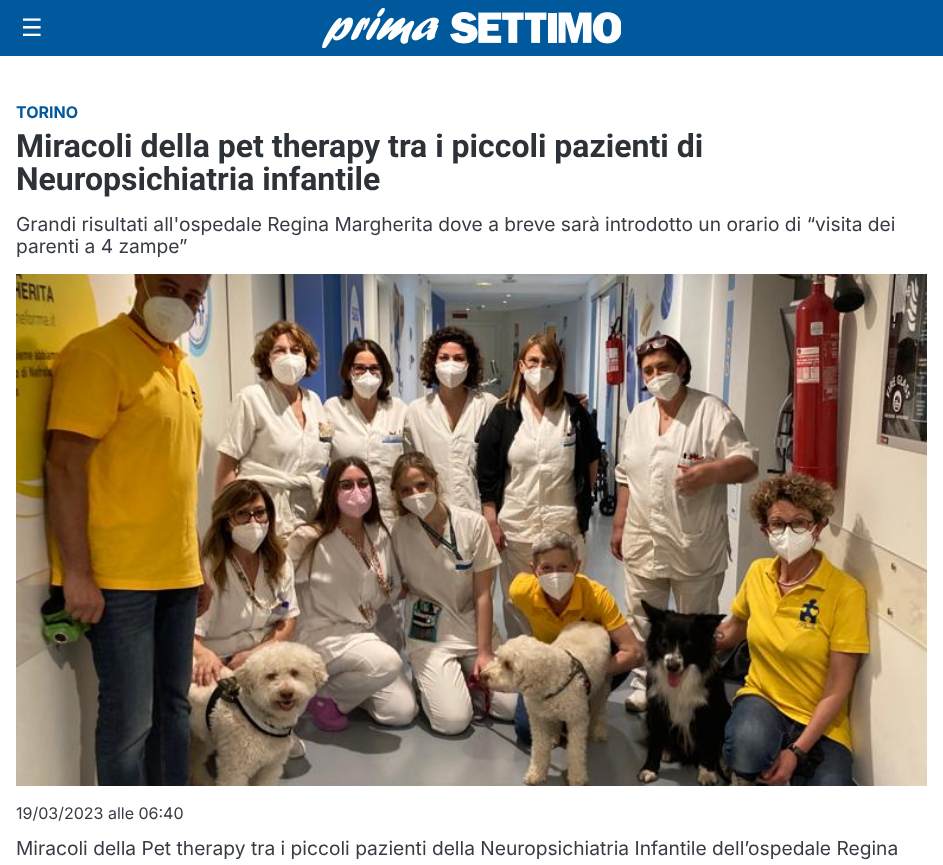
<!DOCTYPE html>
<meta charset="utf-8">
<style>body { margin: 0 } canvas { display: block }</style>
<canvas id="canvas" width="943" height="865"></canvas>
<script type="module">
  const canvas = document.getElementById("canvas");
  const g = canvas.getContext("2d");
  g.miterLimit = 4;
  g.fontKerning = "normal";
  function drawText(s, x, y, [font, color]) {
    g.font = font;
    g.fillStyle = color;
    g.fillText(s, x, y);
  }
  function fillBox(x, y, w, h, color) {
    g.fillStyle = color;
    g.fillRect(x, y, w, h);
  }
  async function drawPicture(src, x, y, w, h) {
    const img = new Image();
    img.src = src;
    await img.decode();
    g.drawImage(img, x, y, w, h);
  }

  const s1 = ["24px DejaVu Sans", "#FFFFFF"];
  const s2 = ["bold 16px Inter", "#00599C"];
  const s3 = ["bold 32px Roboto", "#2D3138"];
  const s4 = ["19.2px Inter", "#373C44"];
  const s5 = ["16px Inter", "#373C44"];

  fillBox(0, 0, 943, 865, "#FFFFFF");
  fillBox(0, 0, 943, 56, "#00599C");
  drawText("☰", 21, 36, s1);
  await drawPicture("pic1.png", 322, 8, 299, 40);
  drawText("TORINO", 16, 118, s2);
  drawText("Miracoli della pet therapy tra i piccoli pazienti di", 16, 157, s3);
  drawText("Neuropsichiatria infantile", 16, 190, s3);
  drawText("Grandi risultati all'ospedale Regina Margherita dove a breve sarà introdotto un orario di “visita dei", 16, 231, s4);
  drawText("parenti a 4 zampe”", 16, 253, s4);
  await drawPicture("pic2.png", 16, 274, 911, 512);
  drawText("19/03/2023 alle 06:40", 16, 819, s5);
  drawText("Miracoli della Pet therapy tra i piccoli pazienti della Neuropsichiatria Infantile dell’ospedale Regina", 16, 855, s4);
</script>
